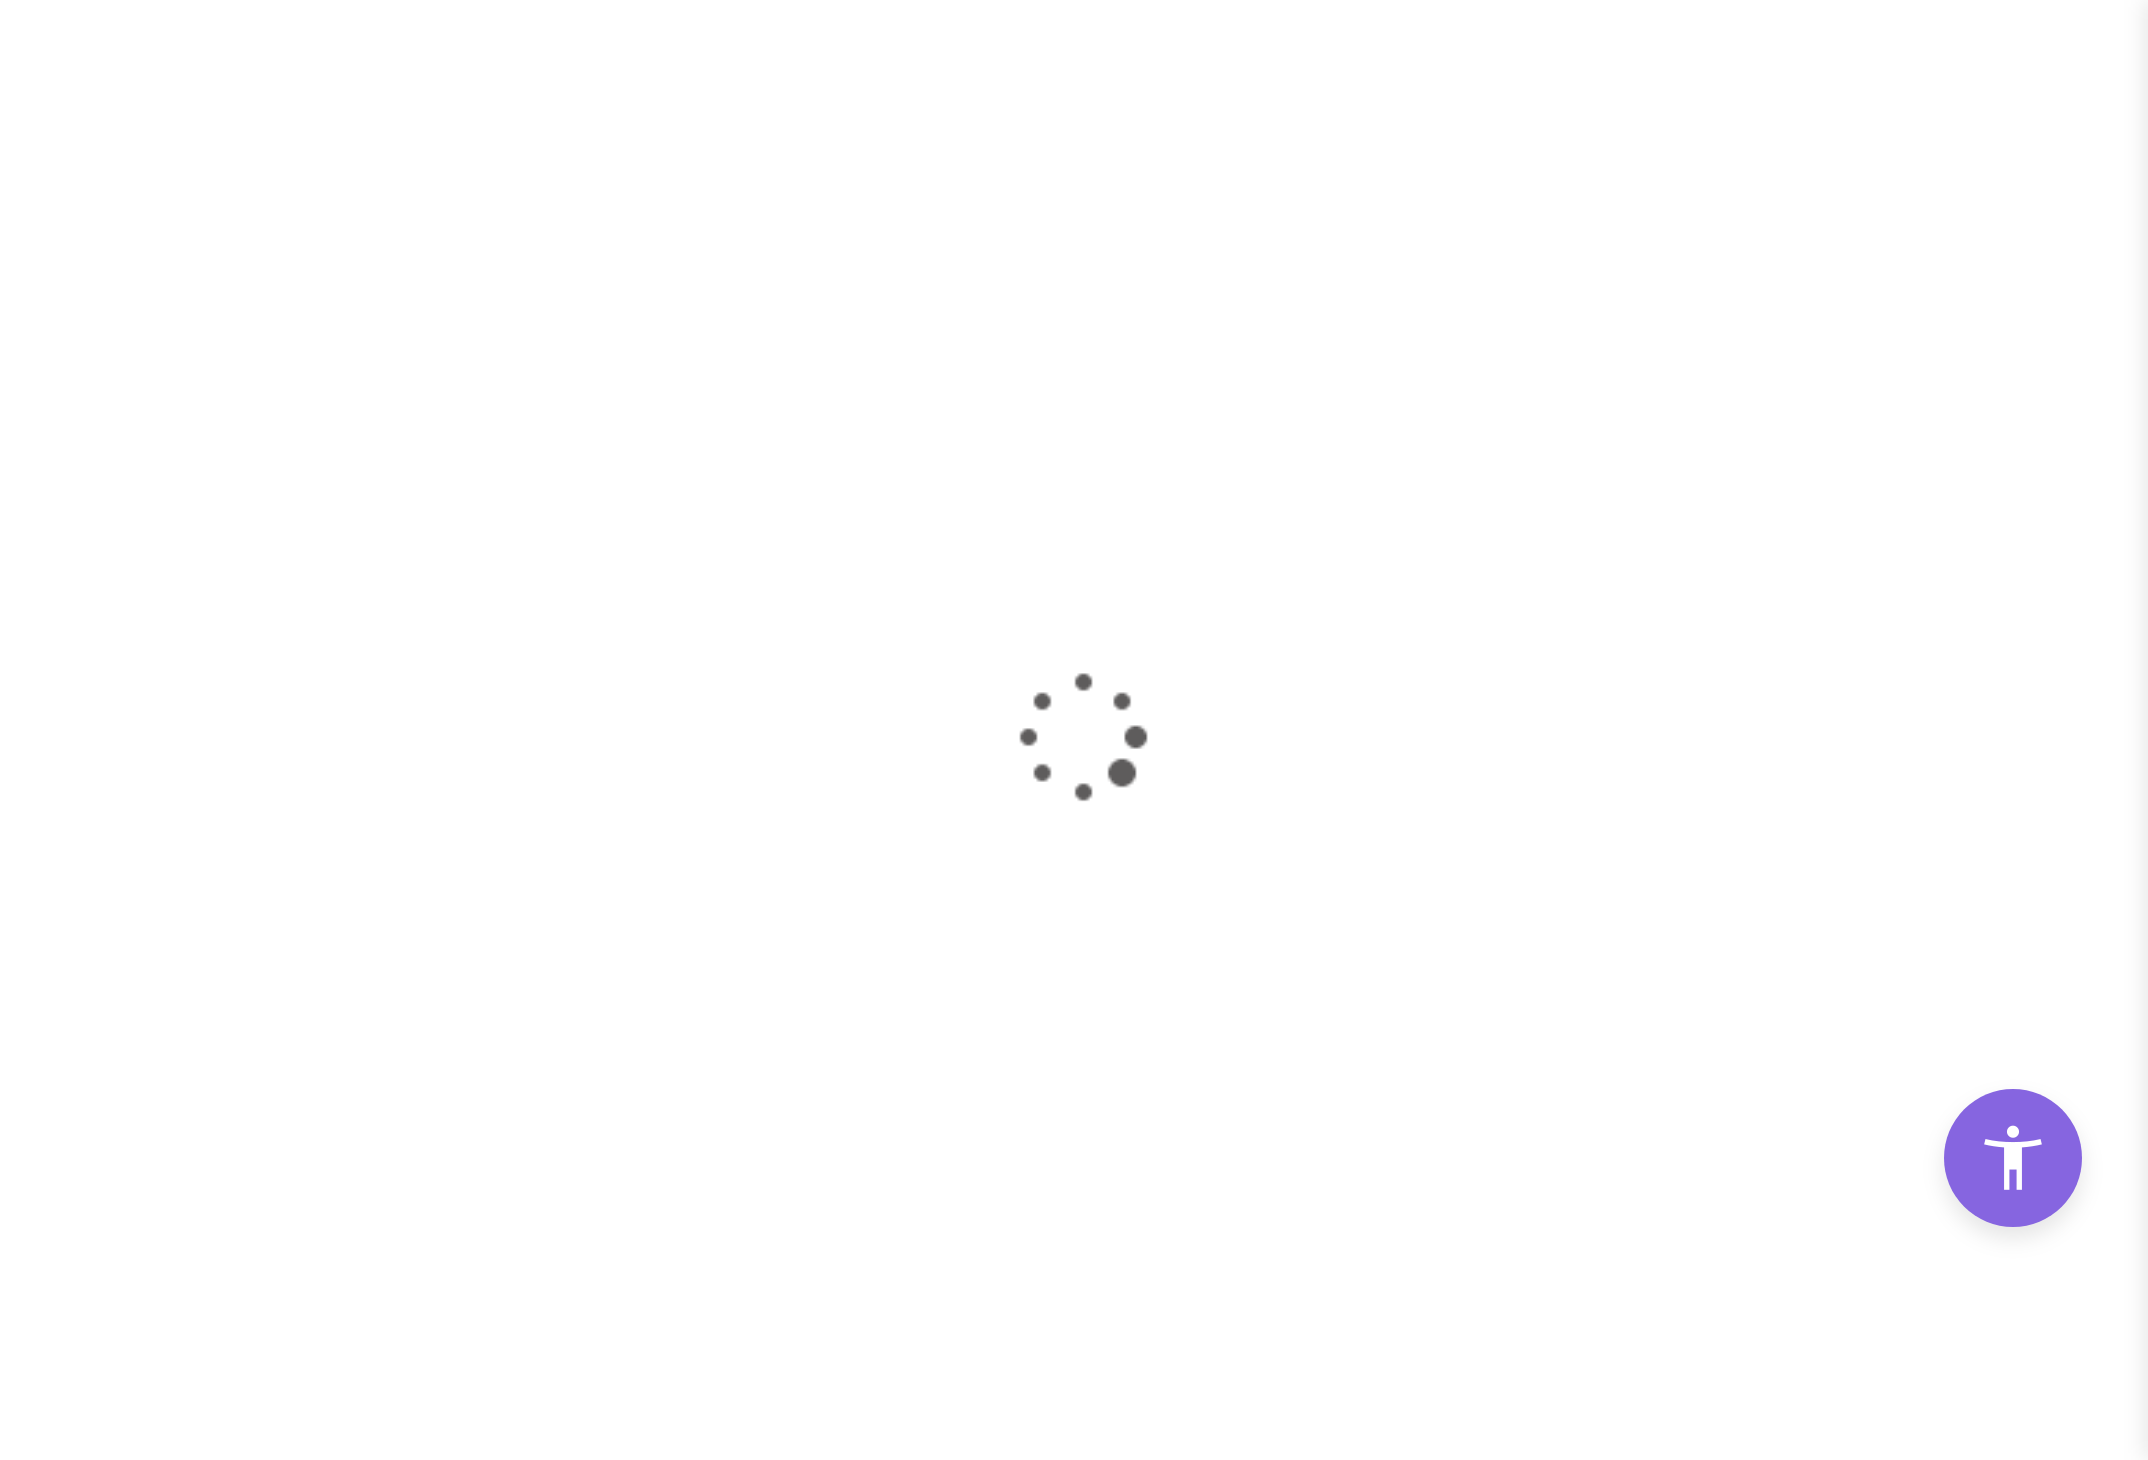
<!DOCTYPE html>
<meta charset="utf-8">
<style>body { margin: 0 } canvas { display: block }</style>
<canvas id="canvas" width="2148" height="1460"></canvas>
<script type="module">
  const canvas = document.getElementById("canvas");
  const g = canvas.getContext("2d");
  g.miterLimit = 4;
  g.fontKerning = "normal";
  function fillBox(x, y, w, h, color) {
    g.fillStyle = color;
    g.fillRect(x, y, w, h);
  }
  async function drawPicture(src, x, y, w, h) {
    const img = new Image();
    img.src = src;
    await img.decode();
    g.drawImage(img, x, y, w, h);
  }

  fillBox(0, 0, 2148, 1460, "#FFFFFF");
  await drawPicture("pic1.png", 1019, 673, 129, 129);
  g.fillStyle = "rgba(0, 0, 0, 0.1)";
  g.filter = "blur(11px)";
  g.beginPath();
  g.rect(2145, 0, 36, 1460);
  g.fill();
  g.filter = "none";
  g.filter = "blur(11px)";
  g.beginPath();
  g.roundRect(1944, 1100, 138, 138, 69);
  g.fill();
  g.filter = "none";
  g.fillStyle = "#8665E0";
  g.beginPath();
  g.arc(2013, 1158, 69, 0, Math.PI * 2);
  g.fill();
  await drawPicture("pic2.png", 1984, 1125, 58, 65);
</script>
